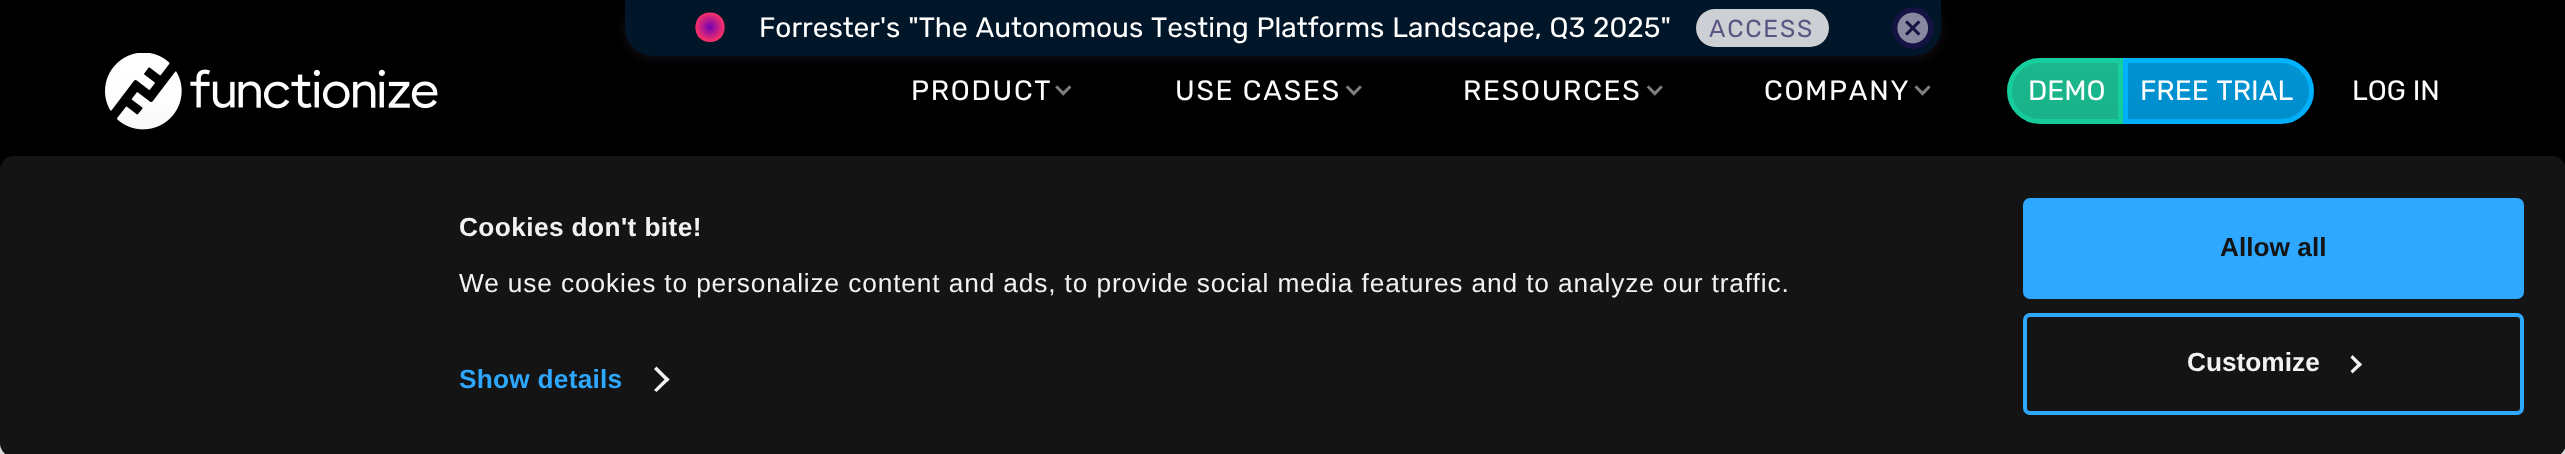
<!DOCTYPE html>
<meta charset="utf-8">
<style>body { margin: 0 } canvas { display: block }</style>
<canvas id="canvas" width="2565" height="454"></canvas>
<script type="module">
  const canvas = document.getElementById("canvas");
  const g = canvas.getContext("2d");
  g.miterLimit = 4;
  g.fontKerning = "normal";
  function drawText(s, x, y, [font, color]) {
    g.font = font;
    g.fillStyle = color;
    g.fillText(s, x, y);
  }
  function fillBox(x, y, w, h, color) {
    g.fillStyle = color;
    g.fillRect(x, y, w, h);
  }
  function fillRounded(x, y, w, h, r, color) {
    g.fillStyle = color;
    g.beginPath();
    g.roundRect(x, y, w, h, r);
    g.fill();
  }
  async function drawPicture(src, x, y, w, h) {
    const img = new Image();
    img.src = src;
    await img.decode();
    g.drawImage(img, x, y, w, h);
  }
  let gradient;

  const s1 = ["28px Rubik", "#FFFFFF"];
  const s2 = ["24.5px Rubik", "#5D5483"];
  const s3 = ["bold 26.25px Liberation Sans", "#F2F2F2"];
  const s4 = ["26.25px Liberation Sans", "#F2F2F2"];
  const s5 = ["bold 26.25px Liberation Sans", "#2EA7FF"];
  const s6 = ["bold 26.25px Liberation Sans", "#141414"];

  fillBox(0, 0, 2565, 454, "#000000");
  g.fillStyle = "rgba(56, 41, 66, 0.38)";
  g.filter = "blur(6px)";
  g.beginPath();
  g.roundRect(625, 2, 1316, 56, 28);
  g.fill();
  g.filter = "none";
  g.fillStyle = "#011628";
  g.beginPath();
  g.roundRect(625, 0, 1316, 56, [0, 0, 28, 28]);
  g.fill();
  gradient = g.createRadialGradient(710, 27, 0, 710, 27, 15);
  gradient.addColorStop(0, "#6F02B7");
  gradient.addColorStop(1, "#FF3366");
  g.fillStyle = gradient;
  g.beginPath();
  g.moveTo(710, 42);
  g.bezierCurveTo(690.5, 42, 690.5, 12.5, 710, 12.5);
  g.bezierCurveTo(729.5, 12.5, 729.5, 42, 710, 42);
  g.closePath();
  g.fill();
  g.wordSpacing = "1px";
  drawText("Forrester's \"The Autonomous Testing Platforms Landscape, Q3 2025\"", 759, 37, s1);
  fillRounded(1696, 9, 133, 38, 19, "#CCD0D4");
  g.letterSpacing = "1.75px";
  g.wordSpacing = "0px";
  drawText("ACCESS", 1709, 37, s2);
  await drawPicture("pic1.png", 1892, 7, 42, 42);
  await drawPicture("pic2.png", 105, 53, 333, 77);
  drawText("PRODUCT", 911, 100, s1);
  await drawPicture("pic3.png", 1055, 85, 17, 11);
  drawText("USE CASES", 1175, 100, s1);
  await drawPicture("pic4.png", 1345, 85, 17, 11);
  drawText("RESOURCES", 1463, 100, s1);
  await drawPicture("pic4.png", 1646, 85, 17, 11);
  drawText("COMPANY", 1764, 100, s1);
  await drawPicture("pic5.png", 1914, 85, 17, 11);
  g.fillStyle = "#1BB68C";
  g.beginPath();
  g.roundRect(2009.5, 60.5, 111, 61, [30.5, 0, 0, 30.5]);
  g.fill();
  g.strokeStyle = "#17CF9E";
  g.lineWidth = 5;
  g.stroke();
  g.letterSpacing = "0px";
  drawText("DEMO", 2028, 100, s1);
  g.fillStyle = "#0092D1";
  g.beginPath();
  g.roundRect(2125.5, 60.5, 186, 61, [0, 30.5, 30.5, 0]);
  g.fill();
  g.strokeStyle = "#00B2FF";
  g.stroke();
  g.wordSpacing = "1px";
  drawText("FREE TRIAL", 2140, 100, s1);
  g.wordSpacing = "0px";
  drawText("LOG IN", 2352, 100, s1);
  gradient = g.createLinearGradient(1283, 350, 1283, 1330);
  gradient.addColorStop(0, "#FFFFFF");
  gradient.addColorStop(1, "#E3EBF2");
  g.fillStyle = gradient;
  g.fillRect(0, 443, 2565, 11);
  g.fillStyle = "rgba(0, 0, 0, 0.3)";
  g.filter = "blur(61px)";
  g.beginPath();
  g.roundRect(0, 208, 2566, 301, 14);
  g.fill();
  g.filter = "none";
  fillRounded(0, 156, 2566, 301, 14, "#141414");
  g.letterSpacing = "0.4px";
  drawText("Cookies don't bite!", 459, 236, s3);
  g.letterSpacing = "0.88px";
  drawText("We use cookies to personalize content and ads, to provide social media features and to analyze our traffic.", 459, 292, s4);
  g.letterSpacing = "0.25px";
  drawText("Show details", 459, 388, s5);
  g.fillStyle = "#F2F2F2";
  g.beginPath();
  g.moveTo(656.5, 366.5);
  g.lineTo(669.5, 379.5);
  g.lineTo(667, 382);
  g.lineTo(654, 369);
  g.closePath();
  g.fill();
  g.beginPath();
  g.moveTo(667, 377);
  g.lineTo(669.5, 379.5);
  g.lineTo(656.5, 392);
  g.lineTo(654, 390);
  g.closePath();
  g.fill();
  g.fillStyle = "#2EA7FF";
  g.beginPath();
  g.roundRect(2025, 200, 497, 97, 5);
  g.fill();
  g.strokeStyle = "#2EA7FF";
  g.lineWidth = 4;
  g.stroke();
  g.letterSpacing = "0px";
  drawText("Allow all", 2220, 256, s6);
  g.beginPath();
  g.roundRect(2025, 315, 497, 98, 5);
  g.stroke();
  drawText("Customize", 2187, 371, s3);
  g.beginPath();
  g.moveTo(2352.5, 355);
  g.lineTo(2362, 364.5);
  g.lineTo(2359.5, 367);
  g.lineTo(2350.5, 357.5);
  g.closePath();
  g.fill();
  g.beginPath();
  g.moveTo(2359.5, 362);
  g.lineTo(2362, 364.5);
  g.lineTo(2352.5, 373.5);
  g.lineTo(2350.5, 371);
  g.closePath();
  g.fill();
</script>
